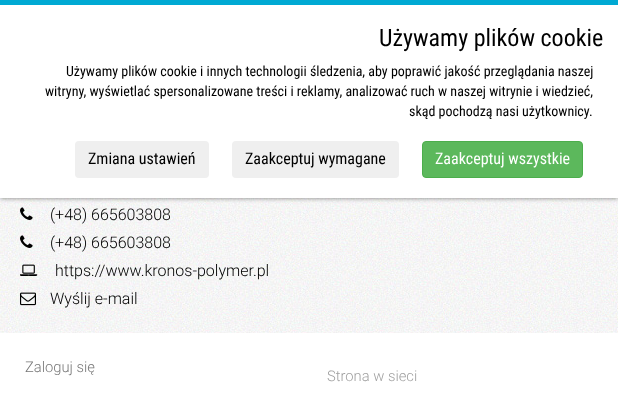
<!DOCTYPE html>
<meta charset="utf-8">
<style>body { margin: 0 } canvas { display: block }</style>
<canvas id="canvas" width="618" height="420"></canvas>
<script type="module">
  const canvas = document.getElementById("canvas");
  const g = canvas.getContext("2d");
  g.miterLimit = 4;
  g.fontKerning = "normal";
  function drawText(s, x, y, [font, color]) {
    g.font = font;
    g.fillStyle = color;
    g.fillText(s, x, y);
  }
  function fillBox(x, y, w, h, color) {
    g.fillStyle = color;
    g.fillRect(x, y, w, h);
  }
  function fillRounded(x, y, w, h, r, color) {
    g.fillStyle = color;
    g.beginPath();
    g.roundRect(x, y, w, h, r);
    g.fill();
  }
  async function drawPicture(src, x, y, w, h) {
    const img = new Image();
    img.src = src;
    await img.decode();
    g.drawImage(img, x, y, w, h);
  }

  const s1 = ["24px Roboto Condensed", "#000000"];
  const s2 = ["14px Roboto Condensed", "#000000"];
  const s3 = ["16px Roboto Condensed", "#000000"];
  const s4 = ["16px Roboto Condensed", "#FFFFFF"];
  const s5 = ["300 16px Roboto", "#000000"];
  const s6 = ["300 14.75px Roboto", "#777777"];
  const s7 = ["300 14.75px Roboto", "#9F9F9F"];

  fillBox(0, 0, 618, 420, "#FFFFFF");
  await drawPicture("pic1.png", 0, 198, 618, 135);
  g.fillStyle = "rgba(0, 0, 0, 0.5)";
  g.filter = "blur(2.5px)";
  g.beginPath();
  g.rect(0, 0, 618, 198);
  g.fill();
  g.filter = "none";
  fillBox(0, 5, 618, 193, "#FFFFFF");
  fillBox(0, 0, 618, 5, "#00A9D3");
  drawText("Używamy plików cookie", 379, 46, s1);
  drawText("Używamy plików cookie i innych technologii śledzenia, aby poprawić jakość przeglądania naszej", 66, 76, s2);
  drawText("witryny, wyświetlać spersonalizowane treści i reklamy, analizować ruch w naszej witrynie i wiedzieć,", 45, 96, s2);
  drawText("skąd pochodzą nasi użytkownicy.", 409, 116, s2);
  fillRounded(75, 141, 134, 37, 4, "#EFEFEF");
  drawText("Zmiana ustawień", 88, 164, s3);
  fillRounded(232, 141, 167, 37, 4, "#EFEFEF");
  drawText("Zaakceptuj wymagane", 245, 164, s3);
  g.fillStyle = "#5CB85C";
  g.beginPath();
  g.roundRect(422.5, 141.5, 160, 36, 3.5);
  g.fill();
  g.strokeStyle = "#4CAE4C";
  g.stroke();
  drawText("Zaakceptuj wszystkie", 435, 164, s4);
  await drawPicture("pic2.png", 20, 207, 13, 13);
  drawText("(+48) 665603808", 50, 220, s5);
  await drawPicture("pic3.png", 20, 235, 13, 13);
  drawText("(+48) 665603808", 50, 248, s5);
  await drawPicture("pic4.png", 20, 264, 18, 12);
  drawText("https://www.kronos-polymer.pl", 55, 276, s5);
  await drawPicture("pic5.png", 20, 292, 16, 14);
  drawText("Wyślij e-mail", 50, 304, s5);
  drawText("Zaloguj się", 25, 372, s6);
  drawText("Strona w sieci", 327, 381, s7);
</script>
